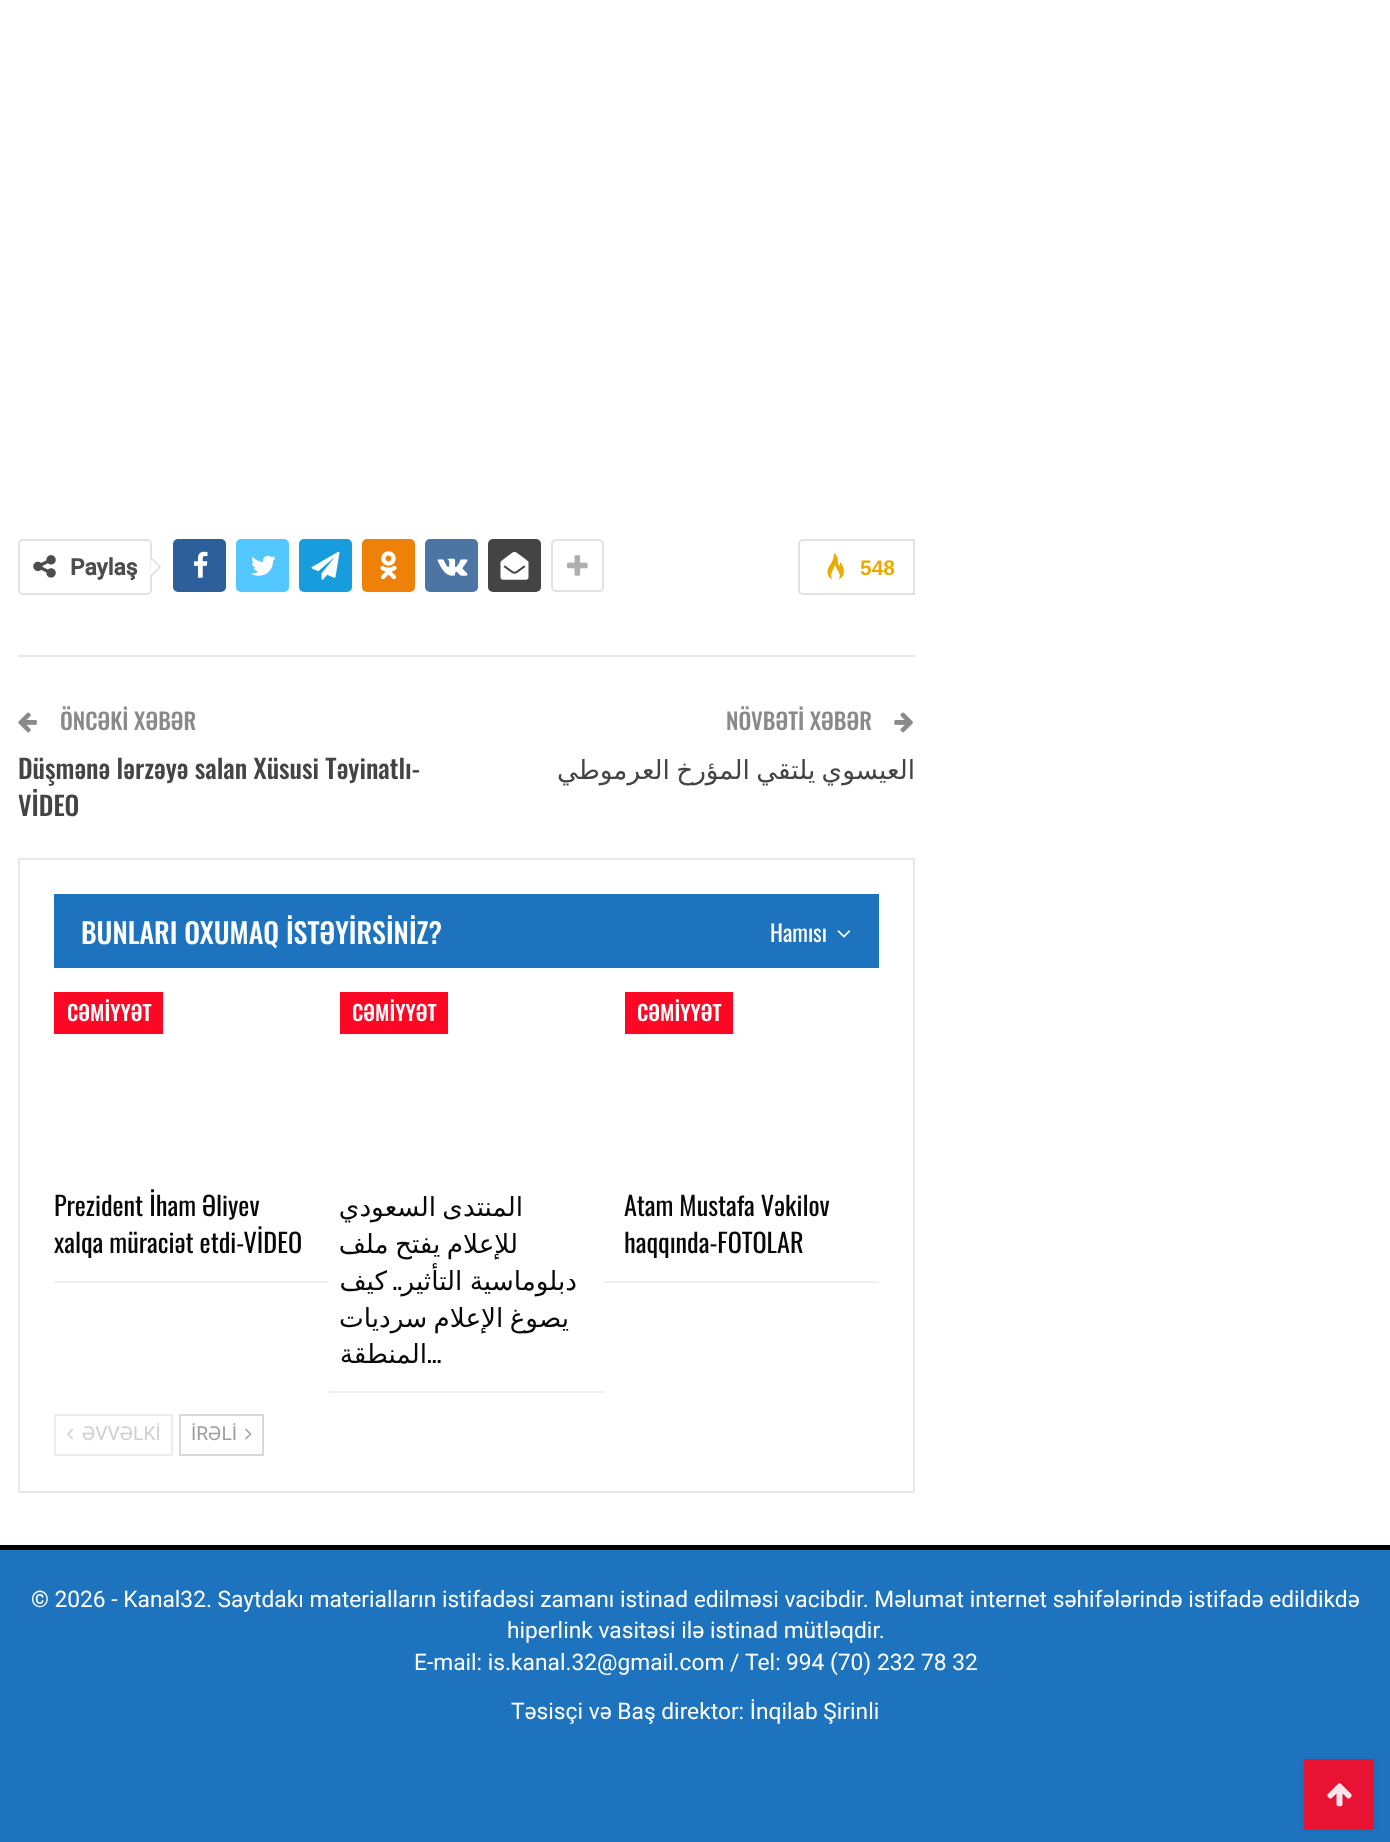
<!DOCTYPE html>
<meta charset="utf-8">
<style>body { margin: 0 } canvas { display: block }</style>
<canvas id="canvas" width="1390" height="1842"></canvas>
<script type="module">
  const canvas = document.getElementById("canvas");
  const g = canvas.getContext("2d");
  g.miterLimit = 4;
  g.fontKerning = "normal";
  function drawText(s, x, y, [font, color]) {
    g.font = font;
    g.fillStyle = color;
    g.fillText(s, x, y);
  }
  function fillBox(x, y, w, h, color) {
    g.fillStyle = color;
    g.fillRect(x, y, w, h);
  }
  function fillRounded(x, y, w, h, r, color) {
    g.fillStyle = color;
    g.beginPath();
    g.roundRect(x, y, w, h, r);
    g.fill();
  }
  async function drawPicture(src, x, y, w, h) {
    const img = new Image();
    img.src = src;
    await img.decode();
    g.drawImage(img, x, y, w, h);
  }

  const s1 = ["bold 22.75px Roboto", "#4D4D4D"];
  const s2 = ["bold 21px Liberation Sans", "#EDAA02"];
  const s3 = ["500 22.75px Oswald", "#8A8A8A"];
  const s4 = ["500 26.25px Oswald", "#444444"];
  const s5 = ["26.25px DejaVu Sans", "#444444"];
  const s6 = ["500 28px Oswald", "#FFFFFF"];
  const s7 = ["23px Oswald", "#FFFFFF"];
  const s8 = ["500 21px Oswald", "#FFFFFF"];
  const s9 = ["26.25px Oswald", "#080808"];
  const s10 = ["26.25px DejaVu Sans", "#080808"];
  const s11 = ["19.25px Roboto", "#CFCFCF"];
  const s12 = ["19.25px Roboto", "#9E9E9E"];
  const s13 = ["22.75px Roboto", "#FFFFFF"];

  fillBox(0, 0, 1390, 1842, "#1E73BE");
  fillBox(0, 0, 1390, 1545, "#FFFFFF");
  g.beginPath();
  g.roundRect(19, 540, 132, 54, 4);
  g.strokeStyle = "#E2E2E2";
  g.lineWidth = 2;
  g.stroke();
  await drawPicture("pic1.png", 33, 555, 23, 23);
  drawText("Paylaş", 70, 575, s1);
  g.fillStyle = "#D7D7D7";
  g.beginPath();
  g.moveTo(150.5, 577.5);
  g.lineTo(150.5, 556.5);
  g.lineTo(161, 567);
  g.closePath();
  g.fill();
  g.fillStyle = "#FFFFFF";
  g.beginPath();
  g.moveTo(150.5, 576);
  g.lineTo(150.5, 558);
  g.lineTo(159, 567);
  g.closePath();
  g.fill();
  fillRounded(173, 539, 53, 53, 5, "#2D5F9A");
  await drawPicture("pic2.png", 194, 551, 14, 27);
  fillRounded(236, 539, 53, 53, 5, "#53C7FF");
  await drawPicture("pic3.png", 251, 555, 25, 21);
  fillRounded(299, 539, 53, 53, 5, "#179CDE");
  await drawPicture("pic4.png", 311, 551, 29, 29);
  fillRounded(362, 539, 53, 53, 5, "#EE8208");
  await drawPicture("pic5.png", 380, 551, 17, 29);
  fillRounded(425, 539, 53, 53, 5, "#4C75A3");
  await drawPicture("pic6.png", 437, 558, 31, 18);
  fillRounded(488, 539, 53, 53, 5, "#444444");
  await drawPicture("pic7.png", 500, 551, 29, 29);
  g.beginPath();
  g.roundRect(552, 540, 51, 51, 4);
  g.stroke();
  await drawPicture("pic8.png", 567, 555, 21, 21);
  g.beginPath();
  g.roundRect(799, 540, 115, 54, [4, 0, 0, 4]);
  g.stroke();
  await drawPicture("pic9.png", 827, 553, 17, 27);
  drawText("548", 860, 575, s2);
  fillBox(18, 655, 897, 2, "#E8E8E8");
  await drawPicture("pic10.png", 18, 712, 19, 21);
  drawText("ÖNCƏKİ XƏBƏR", 60, 730, s3);
  drawText("Düşmənə lərzəyə salan Xüsusi Təyinatlı-", 18, 779, s4);
  drawText("VİDEO", 18, 816, s4);
  drawText("NÖVBƏTİ XƏBƏR", 726, 730, s3);
  await drawPicture("pic11.png", 894, 712, 19, 21);
  g.wordSpacing = "-2px";
  g.direction = "rtl";
  drawText("العيسوي يلتقي المؤرخ العرموطي", 915, 779, s5);
  g.strokeStyle = "#E8E8E8";
  g.strokeRect(19, 859, 895, 633);
  fillBox(54, 894, 825, 74, "#1E73BE");
  g.wordSpacing = "0px";
  g.direction = "ltr";
  drawText("BUNLARI OXUMAQ İSTƏYİRSİNİZ?", 81, 944, s6);
  drawText("Hamısı", 770, 942, s7);
  await drawPicture("pic12.png", 837, 930, 14, 8);
  fillBox(54, 1281, 275, 2, "#F0F0F0");
  fillBox(54, 992, 109, 42, "#FE0724");
  drawText("CƏMİYYƏT", 67, 1021, s8);
  drawText("Prezident İham Əliyev", 54, 1216, s9);
  drawText("xalqa müraciət etdi-VİDEO", 54, 1253, s9);
  fillBox(329, 1391, 275, 2, "#F0F0F0");
  fillBox(340, 992, 108, 42, "#FE0724");
  drawText("CƏMİYYƏT", 352, 1021, s8);
  g.wordSpacing = "-2px";
  g.direction = "rtl";
  drawText("المنتدى السعودي", 523, 1216, s10);
  drawText("للإعلام يفتح ملف", 518, 1253, s10);
  g.wordSpacing = "0px";
  drawText("كيف", 387, 1290, s10);
  drawText("..", 402, 1290, s9);
  g.wordSpacing = "-1px";
  drawText("دبلوماسية التأثير", 577, 1290, s10);
  g.wordSpacing = "-2px";
  drawText("يصوغ الإعلام سرديات", 569, 1327, s10);
  g.wordSpacing = "0px";
  drawText("المنطقة", 427, 1363, s10);
  g.direction = "ltr";
  drawText("…", 427, 1363, s9);
  fillBox(604, 1281, 275, 2, "#F0F0F0");
  fillBox(625, 992, 108, 42, "#FE0724");
  drawText("CƏMİYYƏT", 637, 1021, s8);
  drawText("Atam Mustafa Vəkilov", 624, 1216, s9);
  drawText("haqqında-FOTOLAR", 624, 1253, s9);
  g.strokeStyle = "#ECECEC";
  g.strokeRect(55, 1415, 117, 40);
  await drawPicture("pic13.png", 67, 1428, 7, 12);
  drawText("ƏVVƏLKİ", 82, 1440, s11);
  g.strokeStyle = "#D8D8D8";
  g.strokeRect(180, 1415, 83, 40);
  drawText("İRƏLİ", 191, 1440, s12);
  await drawPicture("pic14.png", 245, 1428, 7, 12);
  fillBox(0, 1545, 1390, 5, "#000000");
  drawText("© 2026 - Kanal32. Saytdakı materialların istifadəsi zamanı istinad edilməsi vacibdir. Məlumat internet səhifələrində istifadə edildikdə", 31, 1607, s13);
  drawText("hiperlink vasitəsi ilə istinad mütləqdir.", 507, 1638, s13);
  drawText("E-mail: is.kanal.32@gmail.com / Tel:", 414, 1670, s13);
  drawText("994 (70) 232 78 32", 786, 1670, s13);
  drawText("Təsisçi və Baş direktor: İnqilab Şirinli", 511, 1719, s13);
  g.fillStyle = "rgba(3, 12, 19, 0.09)";
  g.filter = "blur(2px)";
  g.beginPath();
  g.rect(1304, 1761, 70, 70);
  g.fill();
  g.filter = "none";
  fillBox(1304, 1759, 70, 70, "#E81233");
  await drawPicture("pic15.png", 1327, 1783, 25, 24);
</script>
